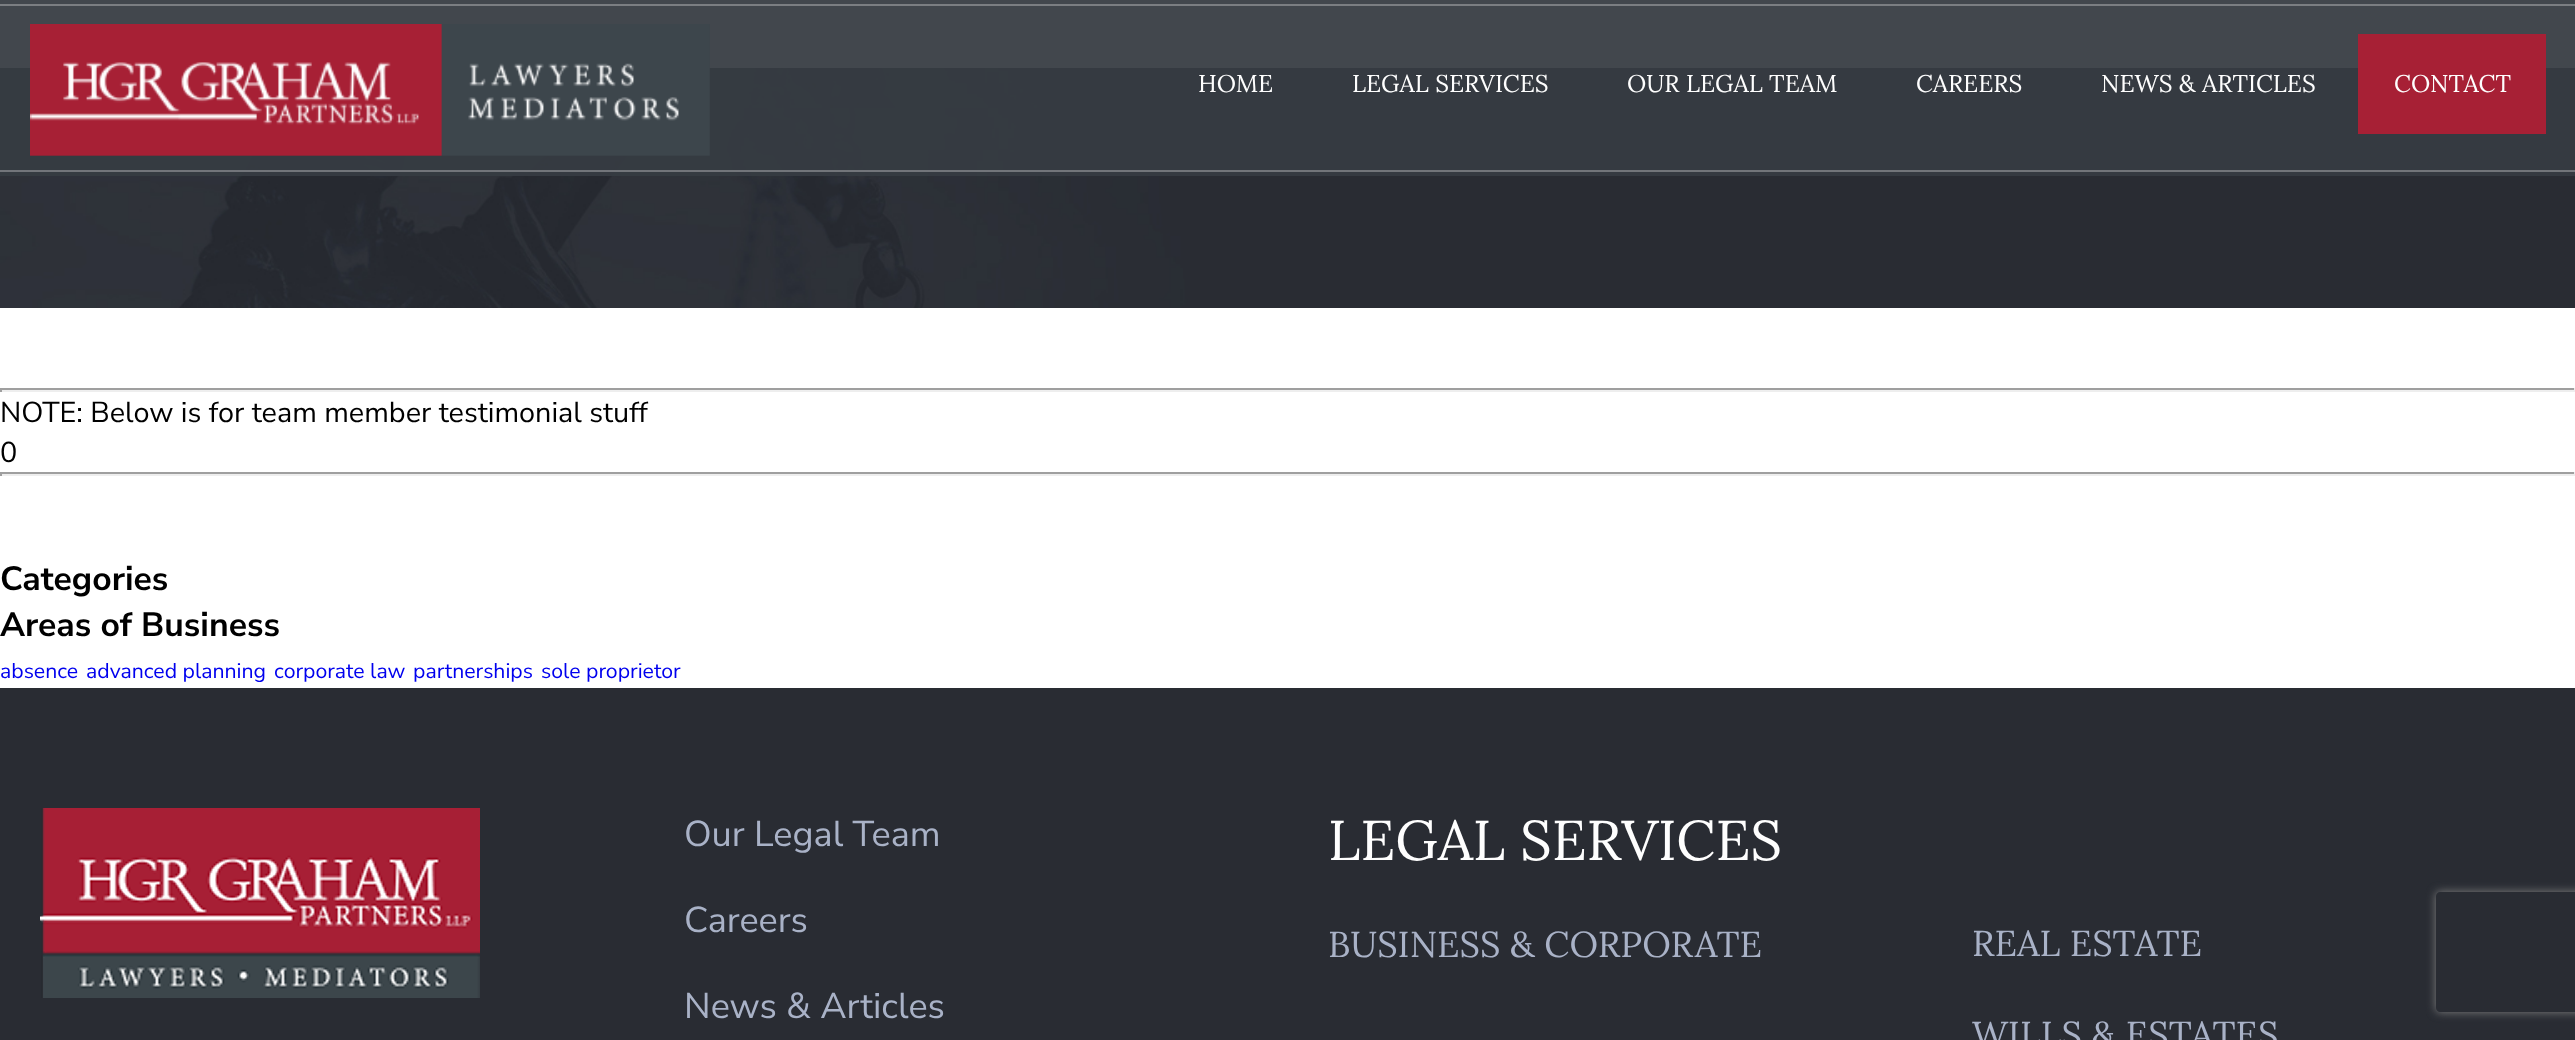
<!DOCTYPE html>
<meta charset="utf-8">
<style>body { margin: 0 } canvas { display: block }</style>
<canvas id="canvas" width="2575" height="1040"></canvas>
<script type="module">
  const canvas = document.getElementById("canvas");
  const g = canvas.getContext("2d");
  g.miterLimit = 4;
  g.fontKerning = "normal";
  function drawText(s, x, y, [font, color]) {
    g.font = font;
    g.fillStyle = color;
    g.fillText(s, x, y);
  }
  function fillBox(x, y, w, h, color) {
    g.fillStyle = color;
    g.fillRect(x, y, w, h);
  }
  async function drawPicture(src, x, y, w, h) {
    const img = new Image();
    img.src = src;
    await img.decode();
    g.drawImage(img, x, y, w, h);
  }

  const s1 = ["24.25px Lora", "#FEFEFE"];
  const s2 = ["28.8px Nunito Sans", "#000000"];
  const s3 = ["bold 33.75px Nunito Sans", "#000000"];
  const s4 = ["21.25px Nunito Sans", "#0000EE"];
  const s5 = ["36px Nunito Sans", "#A9B2C7"];
  const s6 = ["56px Lora", "#FEFEFE"];
  const s7 = ["36px Lora", "#A9B2C7"];

  fillBox(0, 0, 2575, 1040, "#FFFFFF");
  await drawPicture("pic1.png", 0, 68, 2575, 40);
  await drawPicture("pic2.png", 0, 108, 2575, 200);
  fillBox(0, 0, 2575, 176, "rgba(54, 59, 66, 0.94)");
  fillBox(0, 4, 2575, 2, "rgba(255, 255, 255, 0.3)");
  await drawPicture("pic3.png", 30, 24, 680, 132);
  drawText("HOME", 1198, 92, s1);
  drawText("LEGAL SERVICES", 1352, 92, s1);
  drawText("OUR LEGAL TEAM", 1627, 92, s1);
  drawText("CAREERS", 1916, 92, s1);
  drawText("NEWS & ARTICLES", 2101, 92, s1);
  fillBox(2358, 34, 188, 100, "#A72035");
  drawText("CONTACT", 2394, 92, s1);
  fillBox(0, 170, 2575, 2, "#72757A");
  fillBox(0, 388, 2575, 2, "#9F9F9F");
  fillBox(2574, 388, 1, 4, "#EEEEEE");
  fillBox(0, 390, 2575, 2, "#EEEEEE");
  fillBox(0, 388, 2, 4, "#9F9F9F");
  drawText("NOTE: Below is for team member testimonial stuff", 0, 422, s2);
  drawText("0", 0, 462, s2);
  fillBox(0, 472, 2575, 2, "#9F9F9F");
  fillBox(2574, 472, 1, 4, "#EEEEEE");
  fillBox(0, 474, 2575, 2, "#EEEEEE");
  fillBox(0, 472, 2, 4, "#9F9F9F");
  drawText("Categories", 0, 590, s3);
  drawText("Areas of Business", 0, 636, s3);
  drawText("absence", 0, 678, s4);
  drawText("advanced planning", 86, 678, s4);
  drawText("corporate law", 274, 678, s4);
  drawText("partnerships", 413, 678, s4);
  drawText("sole proprietor", 541, 678, s4);
  fillBox(0, 688, 2575, 352, "#292C33");
  await drawPicture("pic4.png", 40, 808, 440, 190);
  drawText("Our Legal Team", 684, 846, s5);
  drawText("Careers", 684, 932, s5);
  drawText("News & Articles", 684, 1018, s5);
  drawText("LEGAL SERVICES", 1328, 860, s6);
  drawText("BUSINESS & CORPORATE", 1328, 957, s7);
  drawText("REAL ESTATE", 1972, 956, s7);
  drawText("WILLS & ESTATES", 1972, 1047, s7);
  g.save();
  g.beginPath();
  g.moveTo(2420, 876);
  g.lineTo(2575, 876);
  g.lineTo(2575, 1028);
  g.lineTo(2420, 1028);
  g.closePath();
  g.moveTo(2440, 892);
  g.lineTo(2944, 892);
  g.bezierCurveTo(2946, 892, 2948, 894, 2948, 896);
  g.lineTo(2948, 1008);
  g.bezierCurveTo(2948, 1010, 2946, 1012, 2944, 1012);
  g.lineTo(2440, 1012);
  g.bezierCurveTo(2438, 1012, 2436, 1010, 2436, 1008);
  g.lineTo(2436, 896);
  g.bezierCurveTo(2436, 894, 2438, 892, 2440, 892);
  g.closePath();
  g.clip("evenodd");
  g.fillStyle = "#808080";
  g.filter = "blur(5px)";
  g.beginPath();
  g.roundRect(2436, 892, 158, 120, 4);
  g.fill();
  g.filter = "none";
  g.restore();
</script>
